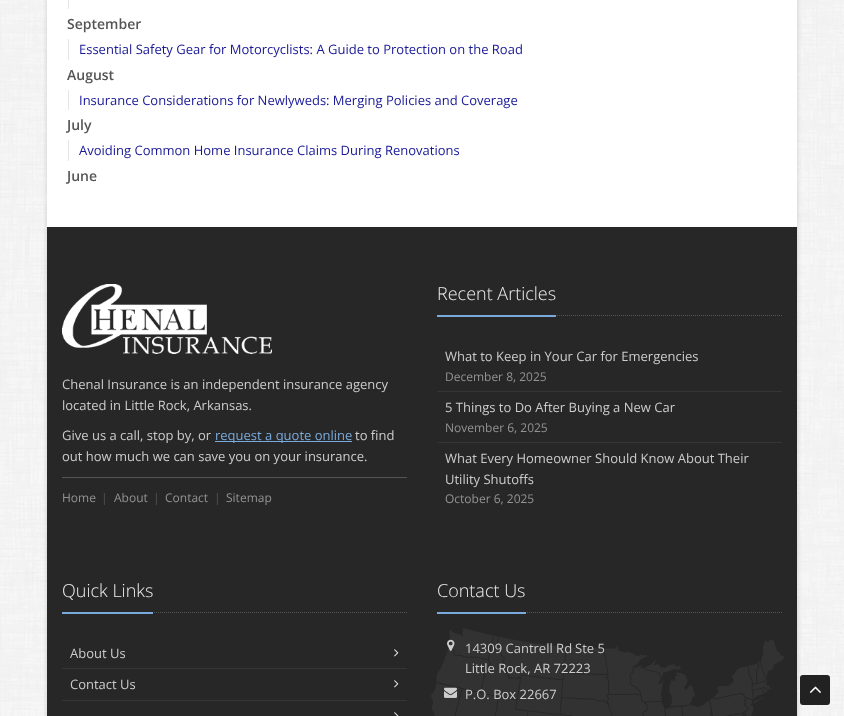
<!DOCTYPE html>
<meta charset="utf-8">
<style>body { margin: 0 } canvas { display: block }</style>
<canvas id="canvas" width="844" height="716"></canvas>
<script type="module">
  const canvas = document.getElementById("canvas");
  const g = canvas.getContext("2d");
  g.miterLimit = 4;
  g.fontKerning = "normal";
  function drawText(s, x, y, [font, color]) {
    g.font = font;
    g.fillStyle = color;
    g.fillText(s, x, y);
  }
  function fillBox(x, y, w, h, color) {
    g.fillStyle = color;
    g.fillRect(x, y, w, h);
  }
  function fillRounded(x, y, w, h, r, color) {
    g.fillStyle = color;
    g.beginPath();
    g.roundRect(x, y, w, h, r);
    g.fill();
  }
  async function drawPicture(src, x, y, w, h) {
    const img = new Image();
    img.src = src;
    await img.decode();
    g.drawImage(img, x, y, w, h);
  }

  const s1 = ["600 14px Open Sans", "#555555"];
  const s2 = ["13px Open Sans", "#181896"];
  const s3 = ["13px Open Sans", "#CCCCCC"];
  const s4 = ["13px Open Sans", "#79AADE"];
  const s5 = ["12px Open Sans", "#939393"];
  const s6 = ["12px Open Sans", "#555555"];
  const s7 = ["300 18px Open Sans", "#EEEEEE"];

  fillBox(0, 0, 844, 716, "#FFFFFF");
  await drawPicture("pic1.png", 0, 0, 844, 716);
  g.fillStyle = "rgba(0, 0, 0, 0.16)";
  g.filter = "blur(2.5px)";
  g.beginPath();
  g.rect(47, -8, 750, 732);
  g.fill();
  g.filter = "none";
  fillBox(47, 0, 750, 227, "#FFFFFF");
  fillBox(68, 0, 1, 9, "#E6E6E6");
  drawText("September", 67, 29, s1);
  fillBox(68, 39, 1, 21, "#E6E6E6");
  drawText("Essential Safety Gear for Motorcyclists: A Guide to Protection on the Road", 79, 54, s2);
  drawText("August", 67, 80, s1);
  fillBox(68, 90, 1, 20, "#E6E6E6");
  drawText("Insurance Considerations for Newlyweds: Merging Policies and Coverage", 79, 105, s2);
  drawText("July", 67, 130, s1);
  fillBox(68, 140, 1, 21, "#E6E6E6");
  drawText("Avoiding Common Home Insurance Claims During Renovations", 79, 155, s2);
  drawText("June", 67, 181, s1);
  fillBox(47, 227, 750, 489, "#272727");
  await drawPicture("pic2.png", 62, 284, 210, 70);
  drawText("Chenal Insurance is an independent insurance agency", 62, 389, s3);
  drawText("located in Little Rock, Arkansas.", 62, 410, s3);
  drawText("Give us a call, stop by, or", 62, 440, s3);
  fillBox(215, 441, 137, 1, "#79AADE");
  drawText("request a quote online", 215, 440, s4);
  drawText("to find", 355, 440, s3);
  drawText("out how much we can save you on your insurance.", 62, 461, s3);
  fillBox(62, 477, 345, 1, "#545454");
  drawText("Home", 62, 502, s5);
  drawText("|", 101, 502, s6);
  drawText("About", 114, 502, s5);
  drawText("|", 153, 502, s6);
  drawText("Contact", 165, 502, s5);
  drawText("|", 214, 502, s6);
  drawText("Sitemap", 226, 502, s5);
  g.beginPath();
  g.moveTo(437, 315.5);
  g.lineTo(782, 315.5);
  g.strokeStyle = "#545454";
  g.setLineDash([1, 1]);
  g.stroke();
  fillBox(437, 315, 119, 2, "#79AADE");
  drawText("Recent Articles", 437, 300, s7);
  drawText("What to Keep in Your Car for Emergencies", 445, 361, s3);
  drawText("December 8, 2025", 445, 381, s5);
  fillBox(437, 391, 345, 1, "#353535");
  drawText("5 Things to Do After Buying a New Car", 445, 412, s3);
  drawText("November 6, 2025", 445, 432, s5);
  fillBox(437, 442, 345, 1, "#353535");
  drawText("What Every Homeowner Should Know About Their", 445, 463, s3);
  drawText("Utility Shutoffs", 445, 484, s3);
  drawText("October 6, 2025", 445, 503, s5);
  g.beginPath();
  g.moveTo(62, 612.5);
  g.lineTo(407, 612.5);
  g.stroke();
  fillBox(62, 612, 91, 2, "#79AADE");
  drawText("Quick Links", 62, 597, s7);
  drawText("About Us", 70, 658, s3);
  await drawPicture("pic3.png", 394, 649, 5, 8);
  fillBox(62, 668, 345, 1, "#353535");
  drawText("Contact Us", 70, 689, s3);
  await drawPicture("pic3.png", 394, 680, 5, 8);
  fillBox(62, 700, 345, 1, "#353535");
  await drawPicture("pic4.png", 394, 712, 5, 4);
  await drawPicture("pic5.png", 431, 628, 353, 88);
  g.beginPath();
  g.moveTo(437, 612.5);
  g.lineTo(782, 612.5);
  g.stroke();
  fillBox(437, 612, 89, 2, "#79AADE");
  drawText("Contact Us", 437, 597, s7);
  await drawPicture("pic6.png", 447, 639, 8, 12);
  drawText("14309 Cantrell Rd", 465, 653, s3);
  drawText("Ste 5", 575, 653, s3);
  drawText("Little Rock, AR 72223", 465, 673, s3);
  await drawPicture("pic7.png", 444, 687, 13, 11);
  drawText("P.O. Box 22667", 465, 699, s3);
  fillRounded(800, 675, 30, 30, 3, "#222222");
  await drawPicture("pic8.png", 809, 686, 12, 7);
</script>
